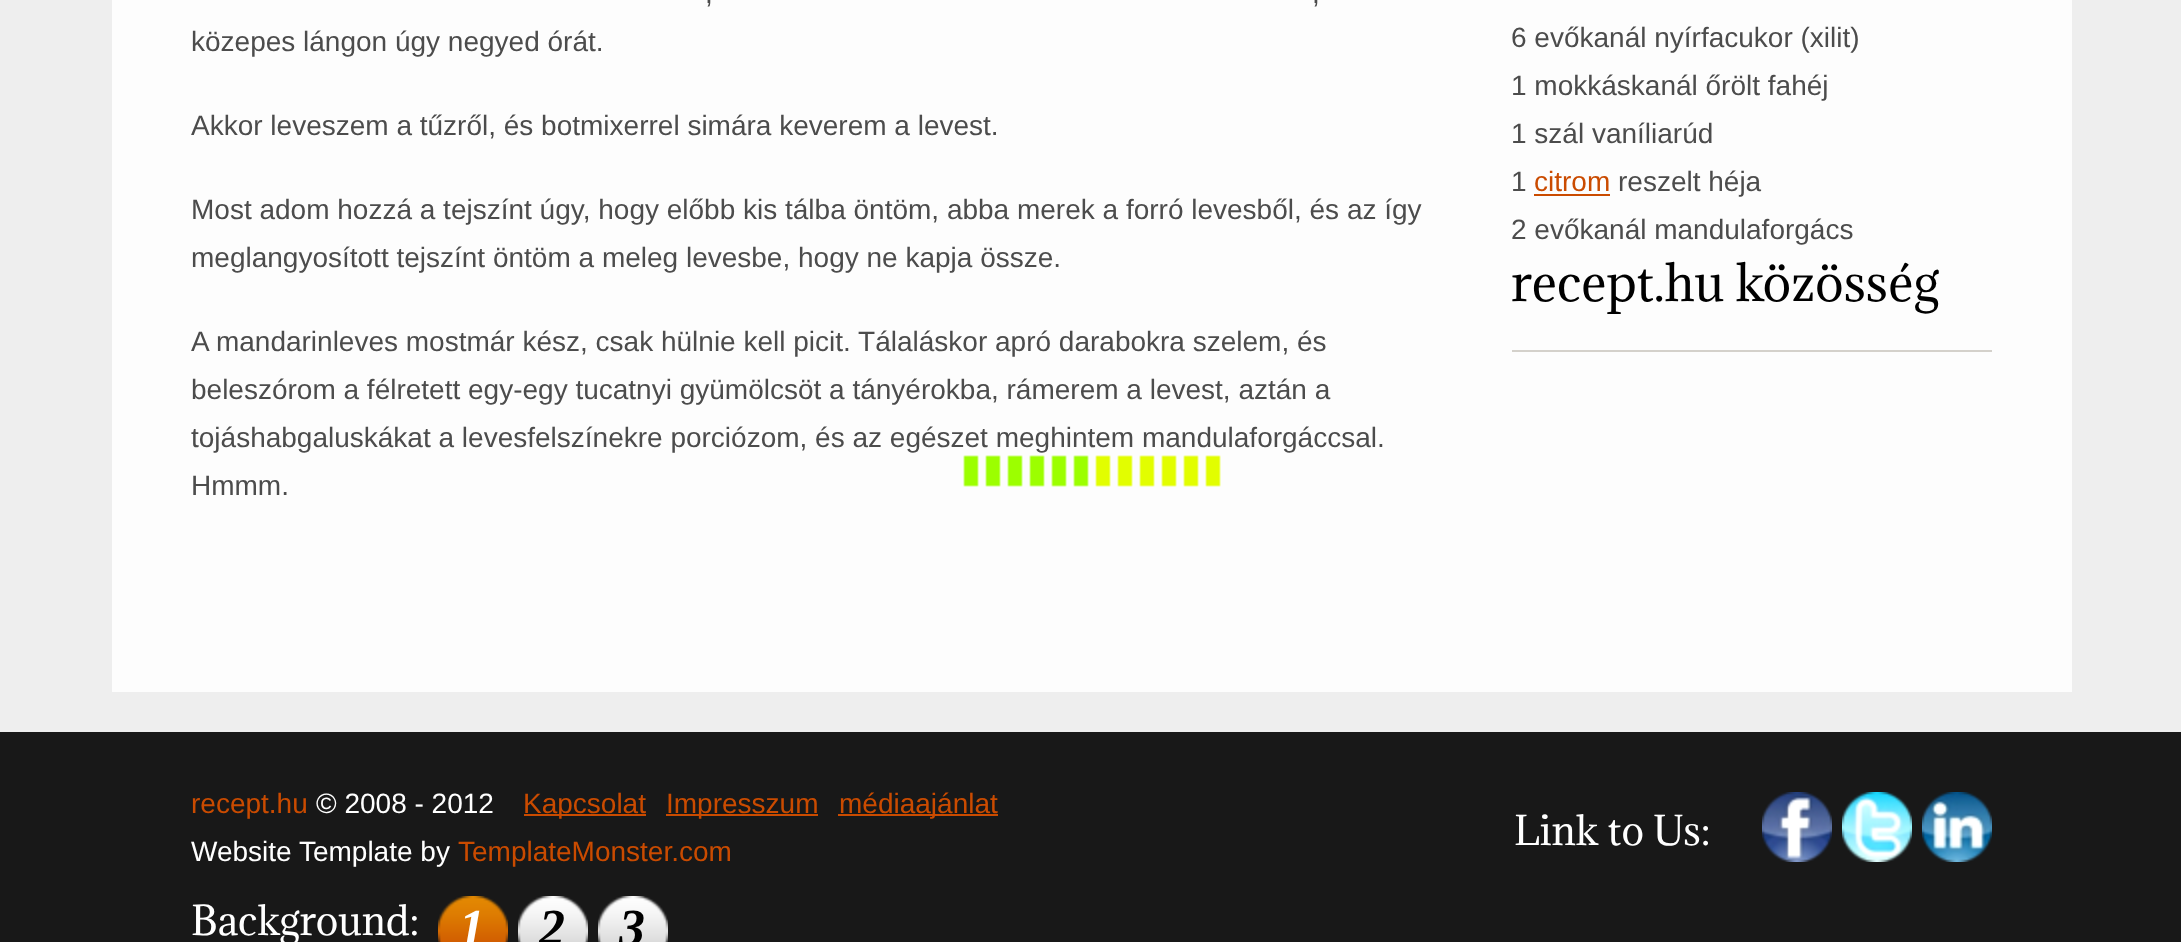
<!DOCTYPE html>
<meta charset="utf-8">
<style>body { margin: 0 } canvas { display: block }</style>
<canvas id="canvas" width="2181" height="942"></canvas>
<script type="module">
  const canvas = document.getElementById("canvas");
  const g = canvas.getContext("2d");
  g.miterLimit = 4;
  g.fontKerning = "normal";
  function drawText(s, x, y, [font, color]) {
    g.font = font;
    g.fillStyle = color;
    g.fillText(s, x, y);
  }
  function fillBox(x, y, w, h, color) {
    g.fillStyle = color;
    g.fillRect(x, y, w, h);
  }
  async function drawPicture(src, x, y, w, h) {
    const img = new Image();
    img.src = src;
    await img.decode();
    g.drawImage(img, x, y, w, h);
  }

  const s1 = ["28px Liberation Sans", "#4C4C4C"];
  const s2 = ["28px Liberation Sans", "#CA4B00"];
  const s3 = ["48px Adamina", "#000000"];
  const s4 = ["28px Liberation Sans", "#FFFFFF"];
  const s5 = ["38px Adamina", "#FFFFFF"];
  const s6 = ["italic bold 52px Liberation Serif", "#FFFFFF"];
  const s7 = ["italic bold 52px Liberation Serif", "#000000"];

  fillBox(0, 0, 2181, 942, "#EEEEEE");
  fillBox(112, 0, 1960, 692, "#FDFDFD");
  drawText(",", 705, 3, s1);
  drawText(",", 1312, 3, s1);
  drawText("közepes lángon úgy negyed órát.", 191, 51, s1);
  drawText("Akkor leveszem a tűzről, és botmixerrel simára keverem a levest.", 191, 135, s1);
  drawText("Most adom hozzá a tejszínt úgy, hogy előbb kis tálba öntöm, abba merek a forró levesből, és az így", 191, 219, s1);
  drawText("meglangyosított tejszínt öntöm a meleg levesbe, hogy ne kapja össze.", 191, 267, s1);
  drawText("A mandarinleves mostmár kész, csak hülnie kell picit. Tálaláskor apró darabokra szelem, és", 191, 351, s1);
  drawText("beleszórom a félretett egy-egy tucatnyi gyümölcsöt a tányérokba, rámerem a levest, aztán a", 191, 399, s1);
  drawText("tojáshabgaluskákat a levesfelszínekre porciózom, és az egészet meghintem mandulaforgáccsal.", 191, 447, s1);
  drawText("Hmmm.", 191, 495, s1);
  drawText("6 evőkanál nyírfacukor (xilit)", 1511, 47, s1);
  drawText("1 mokkáskanál őrölt fahéj", 1511, 95, s1);
  drawText("1 szál vaníliarúd", 1511, 143, s1);
  drawText("1", 1511, 191, s1);
  drawText("citrom", 1534, 191, s2);
  fillBox(1534, 194, 76, 2, "#CA4B00");
  drawText("reszelt héja", 1618, 191, s1);
  drawText("2 evőkanál mandulaforgács", 1511, 239, s1);
  fillBox(1512, 350, 480, 2, "#D4D1CB");
  drawText("recept.hu közösség", 1511, 301, s3);
  await drawPicture("pic1.png", 963, 455, 258, 32);
  fillBox(0, 732, 2181, 210, "#181818");
  drawText("recept.hu", 191, 813, s2);
  drawText("© 2008 - 2012", 316, 813, s4);
  fillBox(524, 814, 122, 2, "#CA4B00");
  drawText("Kapcsolat", 523, 813, s2);
  fillBox(666, 814, 152, 2, "#CA4B00");
  drawText("Impresszum", 666, 813, s2);
  fillBox(838, 814, 160, 2, "#CA4B00");
  drawText("médiaajánlat", 839, 813, s2);
  drawText("Website Template by", 191, 861, s4);
  drawText("TemplateMonster.com", 458, 861, s2);
  drawText("Background:", 191, 935, s5);
  await drawPicture("pic2.png", 438, 896, 70, 46);
  drawText("1", 459, 945, s6);
  await drawPicture("pic3.png", 518, 896, 70, 46);
  drawText("2", 539, 945, s7);
  await drawPicture("pic3.png", 598, 896, 70, 46);
  drawText("3", 619, 945, s7);
  drawText("Link to Us:", 1514, 845, s5);
  await drawPicture("pic4.png", 1762, 792, 70, 70);
  await drawPicture("pic5.png", 1842, 792, 70, 70);
  await drawPicture("pic6.png", 1922, 792, 70, 70);
</script>
